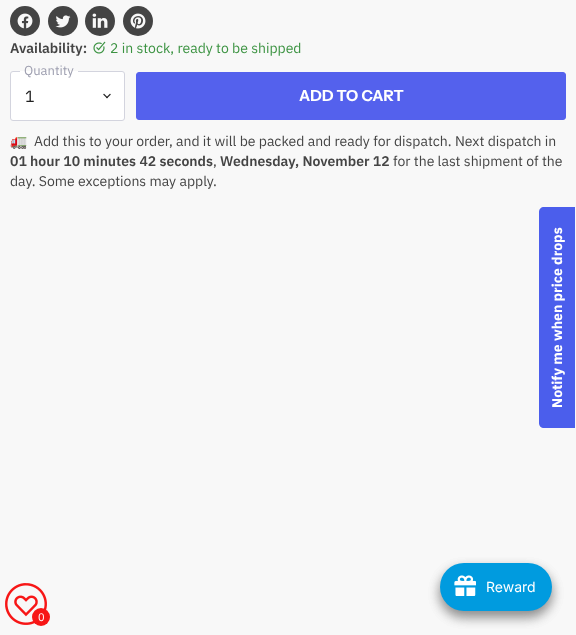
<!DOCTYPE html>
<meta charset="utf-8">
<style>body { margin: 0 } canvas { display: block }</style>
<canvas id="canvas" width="576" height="635"></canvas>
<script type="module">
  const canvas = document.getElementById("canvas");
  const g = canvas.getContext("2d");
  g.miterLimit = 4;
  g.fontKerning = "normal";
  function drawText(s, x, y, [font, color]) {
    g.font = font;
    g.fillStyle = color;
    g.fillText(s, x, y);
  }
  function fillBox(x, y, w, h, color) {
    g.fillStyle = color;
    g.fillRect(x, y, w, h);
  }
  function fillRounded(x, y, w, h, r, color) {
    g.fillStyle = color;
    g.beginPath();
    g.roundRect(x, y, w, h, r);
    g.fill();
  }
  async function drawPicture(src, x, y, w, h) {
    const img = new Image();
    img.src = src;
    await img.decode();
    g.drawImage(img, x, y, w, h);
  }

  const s1 = ["600 14px IBM Plex Sans", "#444444"];
  const s2 = ["14px IBM Plex Sans", "#3C9342"];
  const s3 = ["13px IBM Plex Sans", "#9D9EAF"];
  const s4 = ["16px IBM Plex Sans", "#212121"];
  const s5 = ["bold 15.25px Instrument Sans", "#FFFFFF"];
  const s6 = ["14px Noto Color Emoji", "#444444"];
  const s7 = ["14px IBM Plex Sans", "#444444"];
  const s8 = ["14px Inter", "#FFFFFF"];
  const s9 = ["11px IBM Plex Sans", "#FFFFFF"];

  fillBox(0, 0, 576, 635, "#F8F8F8");
  g.fillStyle = "#444444";
  g.beginPath();
  g.arc(25, 21, 15, 0, Math.PI * 2);
  g.fill();
  await drawPicture("pic1.png", 17, 13, 16, 16);
  g.beginPath();
  g.arc(63, 21, 15, 0, Math.PI * 2);
  g.fill();
  await drawPicture("pic2.png", 55, 15, 16, 13);
  g.beginPath();
  g.arc(100, 21, 15, 0, Math.PI * 2);
  g.fill();
  await drawPicture("pic3.png", 92, 13, 16, 15);
  g.beginPath();
  g.arc(138, 21, 15, 0, Math.PI * 2);
  g.fill();
  await drawPicture("pic4.png", 130, 13, 16, 16);
  drawText("Availability:", 10, 53, s1);
  await drawPicture("pic5.png", 93, 41, 13, 13);
  drawText("2 in stock, ready to be shipped", 110, 53, s2);
  g.fillStyle = "#FFFFFF";
  g.beginPath();
  g.roundRect(10.5, 71.5, 114, 49, 2.5);
  g.fill();
  g.strokeStyle = "#D3D4DE";
  g.stroke();
  fillBox(20, 71, 58, 1, "#FFFFFF");
  drawText("Quantity", 24, 75, s3);
  drawText("1", 25, 102, s4);
  await drawPicture("pic6.png", 103, 93, 8, 6);
  g.fillStyle = "#5461ED";
  g.beginPath();
  g.roundRect(136.5, 72.5, 429, 47, 2.5);
  g.fill();
  g.strokeStyle = "#5461ED";
  g.stroke();
  g.letterSpacing = "0.1px";
  drawText("ADD TO CART", 299, 101, s5);
  g.letterSpacing = "0px";
  drawText("🚛", 10, 146, s6);
  drawText("Add this to your order, and it will be packed and ready for dispatch. Next dispatch in", 34, 146, s7);
  drawText("01 hour 10 minutes 42 seconds", 10, 166, s1);
  drawText(",", 213, 166, s7);
  drawText("Wednesday, November 12", 220, 166, s1);
  drawText("for the last shipment of the", 393, 166, s7);
  drawText("day. Some exceptions may apply.", 10, 186, s7);
  g.fillStyle = "#4B5EEC";
  g.beginPath();
  g.moveTo(539, 423);
  g.lineTo(539, 212);
  g.bezierCurveTo(539, 209, 541, 207, 544, 207);
  g.lineTo(575, 207);
  g.lineTo(575, 428);
  g.lineTo(544, 428);
  g.bezierCurveTo(541, 428, 539, 426, 539, 423);
  g.closePath();
  g.fill();
  g.font = "bold 14px IBM Plex Sans";
  g.fillStyle = "#FFFFFF";
  g.save();
  g.translate(562, 408);
  g.rotate(-90 * Math.PI / 180);
  g.fillText("Notify me when price drops", 0, 0);
  g.restore();
  g.fillStyle = "rgba(0, 0, 0, 0.25)";
  g.filter = "blur(6px)";
  g.beginPath();
  g.roundRect(440, 569, 112, 48, 24);
  g.fill();
  g.filter = "none";
  g.filter = "blur(6px)";
  g.beginPath();
  g.roundRect(440, 569, 112, 48, 24);
  g.fill();
  g.filter = "none";
  fillRounded(440, 563, 112, 48, 24, "#009BDF");
  await drawPicture("pic7.png", 454, 575, 22, 21);
  drawText("Reward", 486, 592, s8);
  await drawPicture("pic8.png", 5, 583, 42, 42);
  g.fillStyle = "#F71616";
  g.beginPath();
  g.arc(41, 617, 9, 0, Math.PI * 2);
  g.fill();
  drawText("0", 38, 621, s9);
</script>
